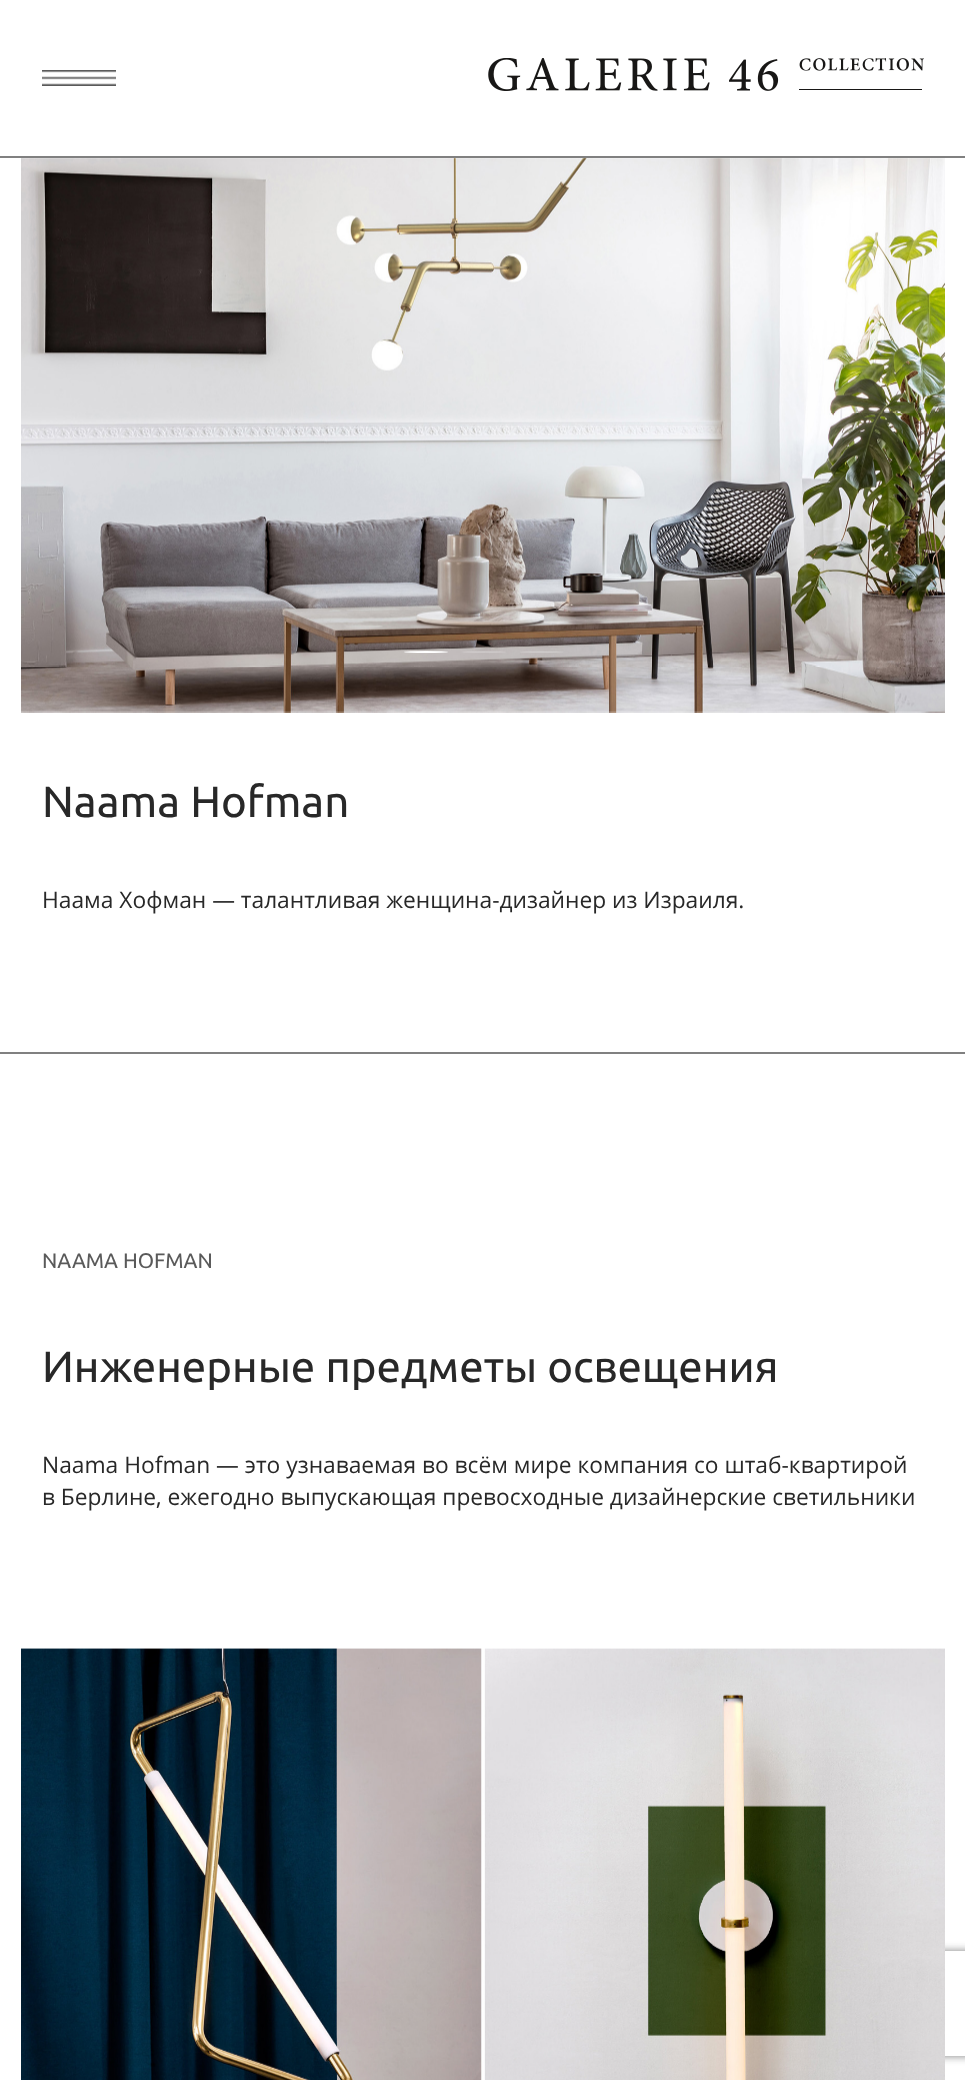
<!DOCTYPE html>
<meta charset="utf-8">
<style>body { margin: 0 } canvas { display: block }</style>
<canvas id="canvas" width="965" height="2080"></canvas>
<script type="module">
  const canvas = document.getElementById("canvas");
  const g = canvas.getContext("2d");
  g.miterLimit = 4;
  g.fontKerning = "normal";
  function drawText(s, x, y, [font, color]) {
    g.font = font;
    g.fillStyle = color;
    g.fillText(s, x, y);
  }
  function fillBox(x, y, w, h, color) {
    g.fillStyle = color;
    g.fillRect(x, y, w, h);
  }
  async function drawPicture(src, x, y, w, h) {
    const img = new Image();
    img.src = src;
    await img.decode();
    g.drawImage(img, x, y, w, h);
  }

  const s1 = ["43.75px Ubuntu", "#282828"];
  const s2 = ["22.75px Open Sans", "#282828"];
  const s3 = ["21px Ubuntu", "#5A5A5A"];

  fillBox(0, 0, 965, 2080, "#FFFFFF");
  fillBox(0, 156, 965, 2, "#808080");
  await drawPicture("pic1.png", 42, 70, 74, 16);
  await drawPicture("pic2.png", 488, 58, 436, 33);
  fillBox(0, 1052, 965, 2, "#808080");
  await drawPicture("pic3.png", 21, 158, 924, 555);
  g.fillStyle = "#FFFFFF";
  g.beginPath();
  g.ellipse(426, 652, 22, 1, 0, 0, Math.PI * 2);
  g.fill();
  g.fillStyle = "rgba(255, 255, 255, 0.2)";
  g.beginPath();
  g.ellipse(484, 652, 22, 1, 0, 0, Math.PI * 2);
  g.fill();
  g.beginPath();
  g.ellipse(541.5, 652, 22, 1, 0, 0, Math.PI * 2);
  g.fill();
  drawText("Naama Hofman", 42, 817, s1);
  drawText("Наама Хофман — талантливая женщина-дизайнер из Израиля.", 42, 908, s2);
  drawText("NAAMA HOFMAN", 42, 1268, s3);
  drawText("Инженерные предметы освещения", 42, 1382, s1);
  drawText("Naama Hofman — это узнаваемая во всём мире компания со штаб-квартирой", 42, 1473, s2);
  drawText("в Берлине, ежегодно выпускающая превосходные дизайнерские светильники", 42, 1505, s2);
  g.save();
  g.beginPath();
  g.moveTo(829, 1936);
  g.lineTo(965, 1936);
  g.lineTo(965, 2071);
  g.lineTo(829, 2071);
  g.closePath();
  g.moveTo(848, 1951);
  g.lineTo(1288, 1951);
  g.bezierCurveTo(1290, 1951, 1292, 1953, 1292, 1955);
  g.lineTo(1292, 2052);
  g.bezierCurveTo(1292, 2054, 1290, 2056, 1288, 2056);
  g.lineTo(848, 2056);
  g.bezierCurveTo(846, 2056, 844, 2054, 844, 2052);
  g.lineTo(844, 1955);
  g.bezierCurveTo(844, 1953, 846, 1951, 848, 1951);
  g.closePath();
  g.clip("evenodd");
  g.fillStyle = "#808080";
  g.filter = "blur(4.5px)";
  g.beginPath();
  g.roundRect(844, 1951, 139, 105, 4);
  g.fill();
  g.filter = "none";
  g.restore();
  await drawPicture("pic4.png", 21, 1648, 924, 432);
</script>
